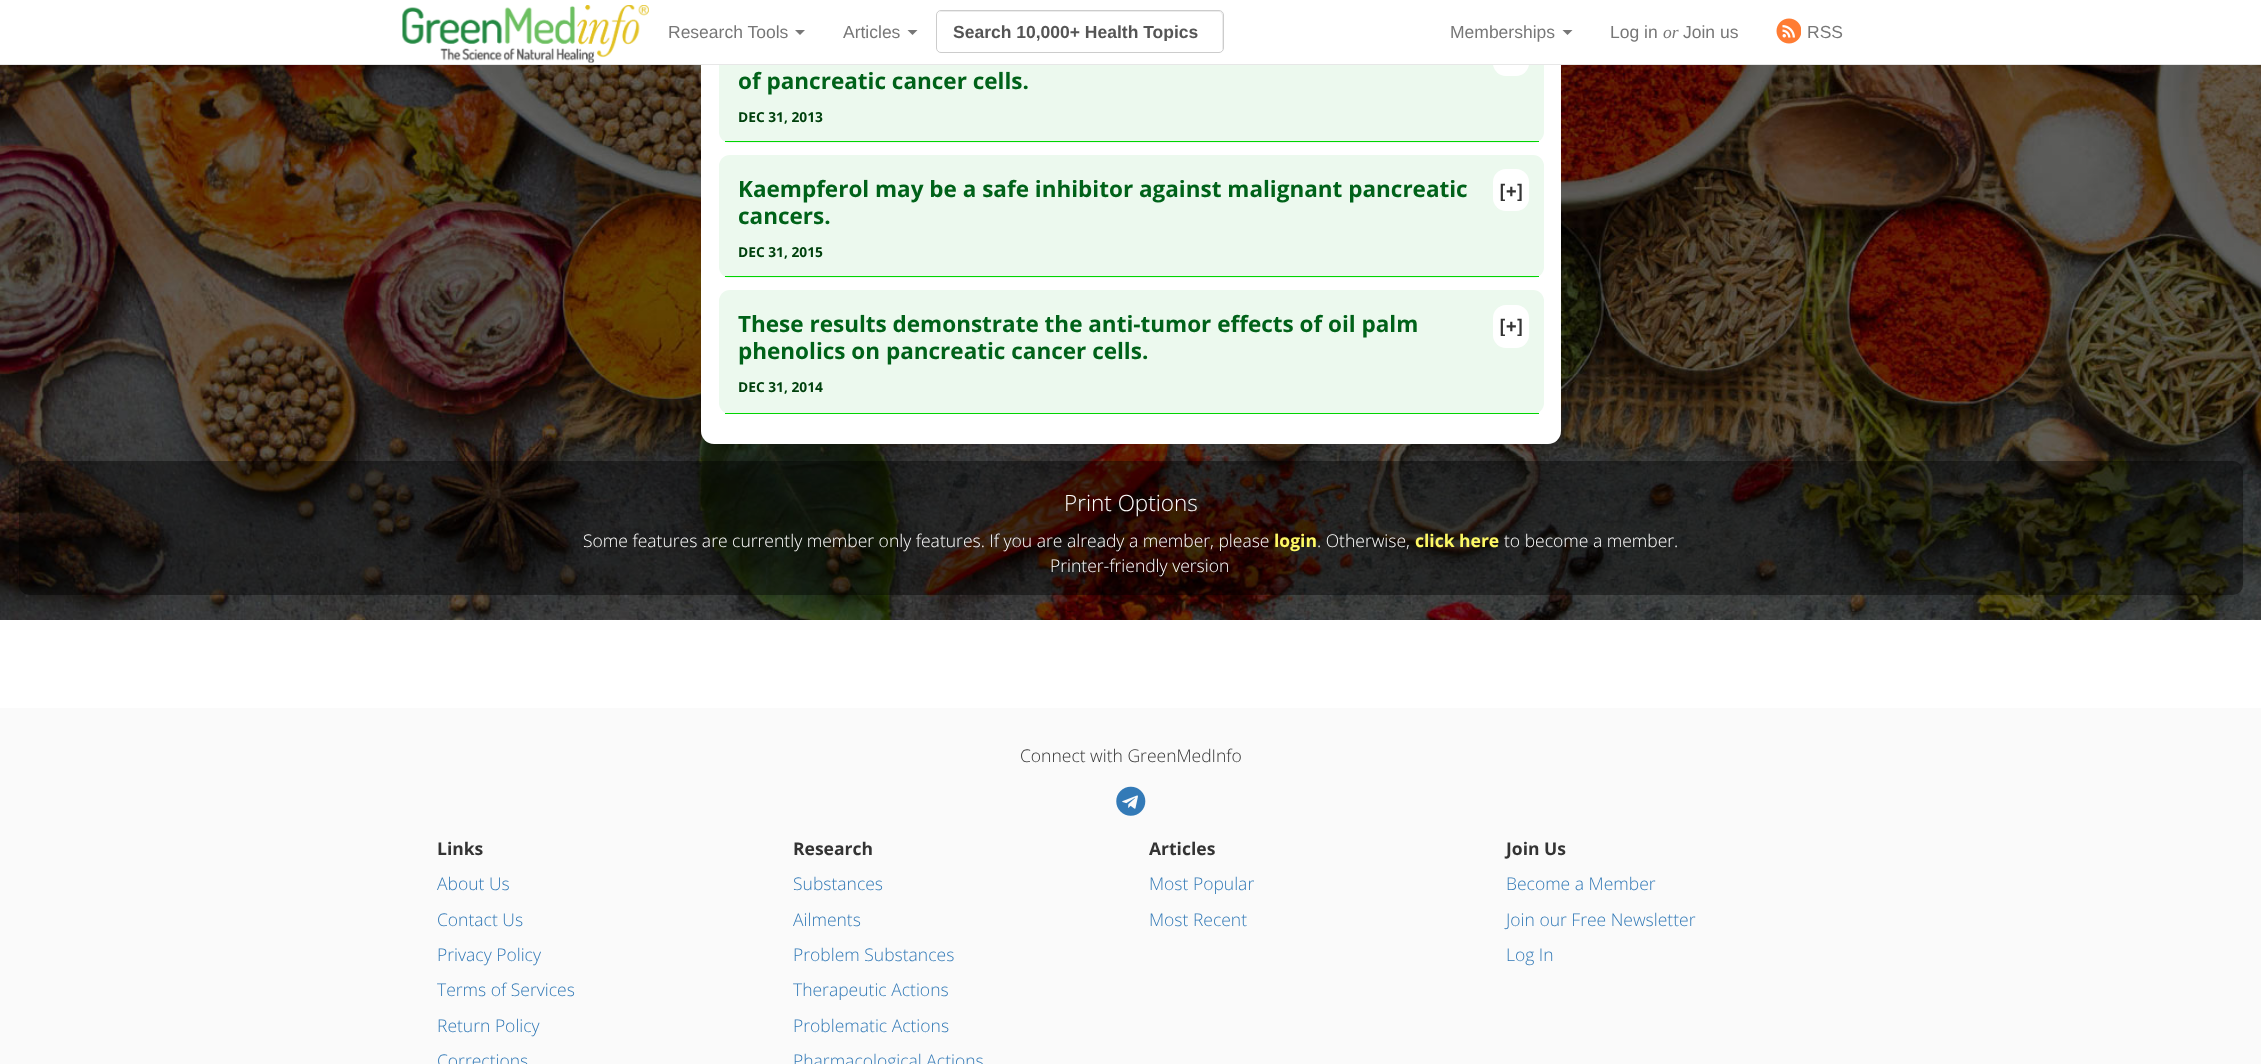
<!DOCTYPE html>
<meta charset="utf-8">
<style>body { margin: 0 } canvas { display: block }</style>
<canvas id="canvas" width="2261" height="1064"></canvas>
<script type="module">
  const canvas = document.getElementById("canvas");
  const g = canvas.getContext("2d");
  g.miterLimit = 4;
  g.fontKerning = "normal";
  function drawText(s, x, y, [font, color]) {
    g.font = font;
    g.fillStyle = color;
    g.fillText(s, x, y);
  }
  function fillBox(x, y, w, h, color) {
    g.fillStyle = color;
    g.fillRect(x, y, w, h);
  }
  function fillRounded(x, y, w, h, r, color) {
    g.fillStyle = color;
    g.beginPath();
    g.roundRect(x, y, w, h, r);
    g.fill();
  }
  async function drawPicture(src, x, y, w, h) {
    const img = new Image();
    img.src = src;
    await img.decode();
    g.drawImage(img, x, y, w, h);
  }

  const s1 = ["17.5px Liberation Sans", "#777777"];
  const s2 = ["bold 17.5px Liberation Sans", "#555555"];
  const s3 = ["italic 17.5px Liberation Serif", "#777777"];
  const s4 = ["bold 22.5px Open Sans", "#006219"];
  const s5 = ["bold 13.75px Open Sans", "#00410D"];
  const s6 = ["bold 20px Source Sans Pro", "#333333"];
  const s7 = ["300 22.5px Open Sans", "#FFFFFF"];
  const s8 = ["300 17.5px Open Sans", "#FFFFFF"];
  const s9 = ["bold 17.5px Open Sans", "#FEF965"];
  const s10 = ["300 17.5px Open Sans", "#333333"];
  const s11 = ["bold 17.5px Open Sans", "#333333"];
  const s12 = ["300 17.5px Open Sans", "#337AB7"];

  fillBox(0, 0, 2261, 1064, "#FFFFFF");
  await drawPicture("pic3.png", 0, 65, 2261, 555);
  fillRounded(701, -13, 860, 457, 13, "#FFFFFF");
  fillRounded(719, 20, 825, 123, 11, "#ECF9EE");
  fillRounded(1493, 34, 36, 42, 13, "#FFFFFF");
  fillBox(719, 20, 825, 44, "#FFFFFF");
  fillBox(0, 64, 2261, 1, "#E7E7E7");
  await drawPicture("pic1.png", 402, 5, 247, 58);
  drawText("Research Tools", 668, 38, s1);
  g.beginPath();
  g.moveTo(795, 30);
  g.lineTo(805, 30);
  g.lineTo(800, 35);
  g.closePath();
  g.fill();
  drawText("Articles", 843, 38, s1);
  g.beginPath();
  g.moveTo(907.5, 30);
  g.lineTo(917.5, 30);
  g.lineTo(912.5, 35);
  g.closePath();
  g.fill();
  g.fillStyle = "#ECECEC";
  g.beginPath();
  g.moveTo(941, 12);
  g.lineTo(1219, 12);
  g.bezierCurveTo(1221, 12, 1222, 14, 1222, 16);
  g.lineTo(1222, 50);
  g.bezierCurveTo(1223, 49, 1223, 48, 1223, 47);
  g.lineTo(1223, 15);
  g.bezierCurveTo(1223, 13, 1221, 11, 1219, 11);
  g.lineTo(942, 11);
  g.bezierCurveTo(940, 11, 938, 13, 938, 15);
  g.lineTo(938, 16);
  g.bezierCurveTo(938, 14, 939, 12, 941, 12);
  g.closePath();
  g.fill();
  g.beginPath();
  g.roundRect(936.5, 10.5, 287, 42, 4.5);
  g.strokeStyle = "#CCCCCC";
  g.stroke();
  g.save();
  g.beginPath();
  g.rect(953, 21, 255, 20);
  g.clip();
  drawText("Search 10,000+ Health Topics", 953, 38, s2);
  g.restore();
  drawText("Memberships", 1450, 38, s1);
  g.beginPath();
  g.moveTo(1562.5, 30);
  g.lineTo(1572.5, 30);
  g.lineTo(1567.5, 35);
  g.closePath();
  g.fill();
  drawText("Log in", 1610, 38, s1);
  drawText("or", 1663, 38, s3);
  drawText("Join us", 1683, 38, s1);
  await drawPicture("pic2.png", 1776, 18, 25, 26);
  drawText("RSS", 1807, 38, s1);
  fillBox(725, 141, 814, 1, "#00D500");
  drawText("of pancreatic cancer cells.", 738, 89, s4);
  drawText("DEC 31, 2013", 738, 122, s5);
  fillRounded(719, 155, 825, 123, 11, "#ECF9EE");
  fillBox(725, 276, 814, 1, "#00D500");
  drawText("Kaempferol may be a safe inhibitor against malignant pancreatic", 738, 197, s4);
  drawText("cancers.", 738, 224, s4);
  drawText("DEC 31, 2015", 738, 257, s5);
  fillRounded(1493, 169, 36, 42, 13, "#FFFFFF");
  drawText("[+]", 1499, 198, s6);
  fillRounded(719, 290, 825, 124, 11, "#ECF9EE");
  fillBox(725, 413, 814, 1, "#00D500");
  drawText("These results demonstrate the anti-tumor effects of oil palm", 738, 332, s4);
  drawText("phenolics on pancreatic cancer cells.", 738, 359, s4);
  drawText("DEC 31, 2014", 738, 392, s5);
  fillRounded(1493, 305, 36, 43, 13, "#FFFFFF");
  drawText("[+]", 1499, 333, s6);
  fillRounded(19, 461, 2224, 134, 10, "rgba(0, 0, 0, 0.4)");
  drawText("Print Options", 1064, 511, s7);
  drawText("Some features are currently member only features. If you are already a member, please", 583, 547, s8);
  drawText("login", 1274, 547, s9);
  drawText(". Otherwise,", 1317, 547, s8);
  drawText("click here", 1415, 547, s9);
  drawText("to become a member.", 1504, 547, s8);
  drawText("Printer-friendly version", 1050, 572, s8);
  fillBox(0, 708, 2261, 356, "#FAFAFA");
  drawText("Connect with GreenMedInfo", 1020, 762, s10);
  await drawPicture("pic4.png", 1116, 786, 30, 30);
  drawText("Links", 437, 855, s11);
  drawText("About Us", 437, 890, s12);
  drawText("Contact Us", 437, 926, s12);
  drawText("Privacy Policy", 437, 961, s12);
  drawText("Terms of Services", 437, 996, s12);
  drawText("Return Policy", 437, 1032, s12);
  drawText("Corrections", 437, 1067, s12);
  drawText("Research", 793, 855, s11);
  drawText("Substances", 793, 890, s12);
  drawText("Ailments", 793, 926, s12);
  drawText("Problem Substances", 793, 961, s12);
  drawText("Therapeutic Actions", 793, 996, s12);
  drawText("Problematic Actions", 793, 1032, s12);
  drawText("Pharmacological Actions", 793, 1067, s12);
  drawText("Articles", 1149, 855, s11);
  drawText("Most Popular", 1149, 890, s12);
  drawText("Most Recent", 1149, 926, s12);
  drawText("Join Us", 1506, 855, s11);
  drawText("Become a Member", 1506, 890, s12);
  drawText("Join our Free Newsletter", 1506, 926, s12);
  drawText("Log In", 1506, 961, s12);
</script>
